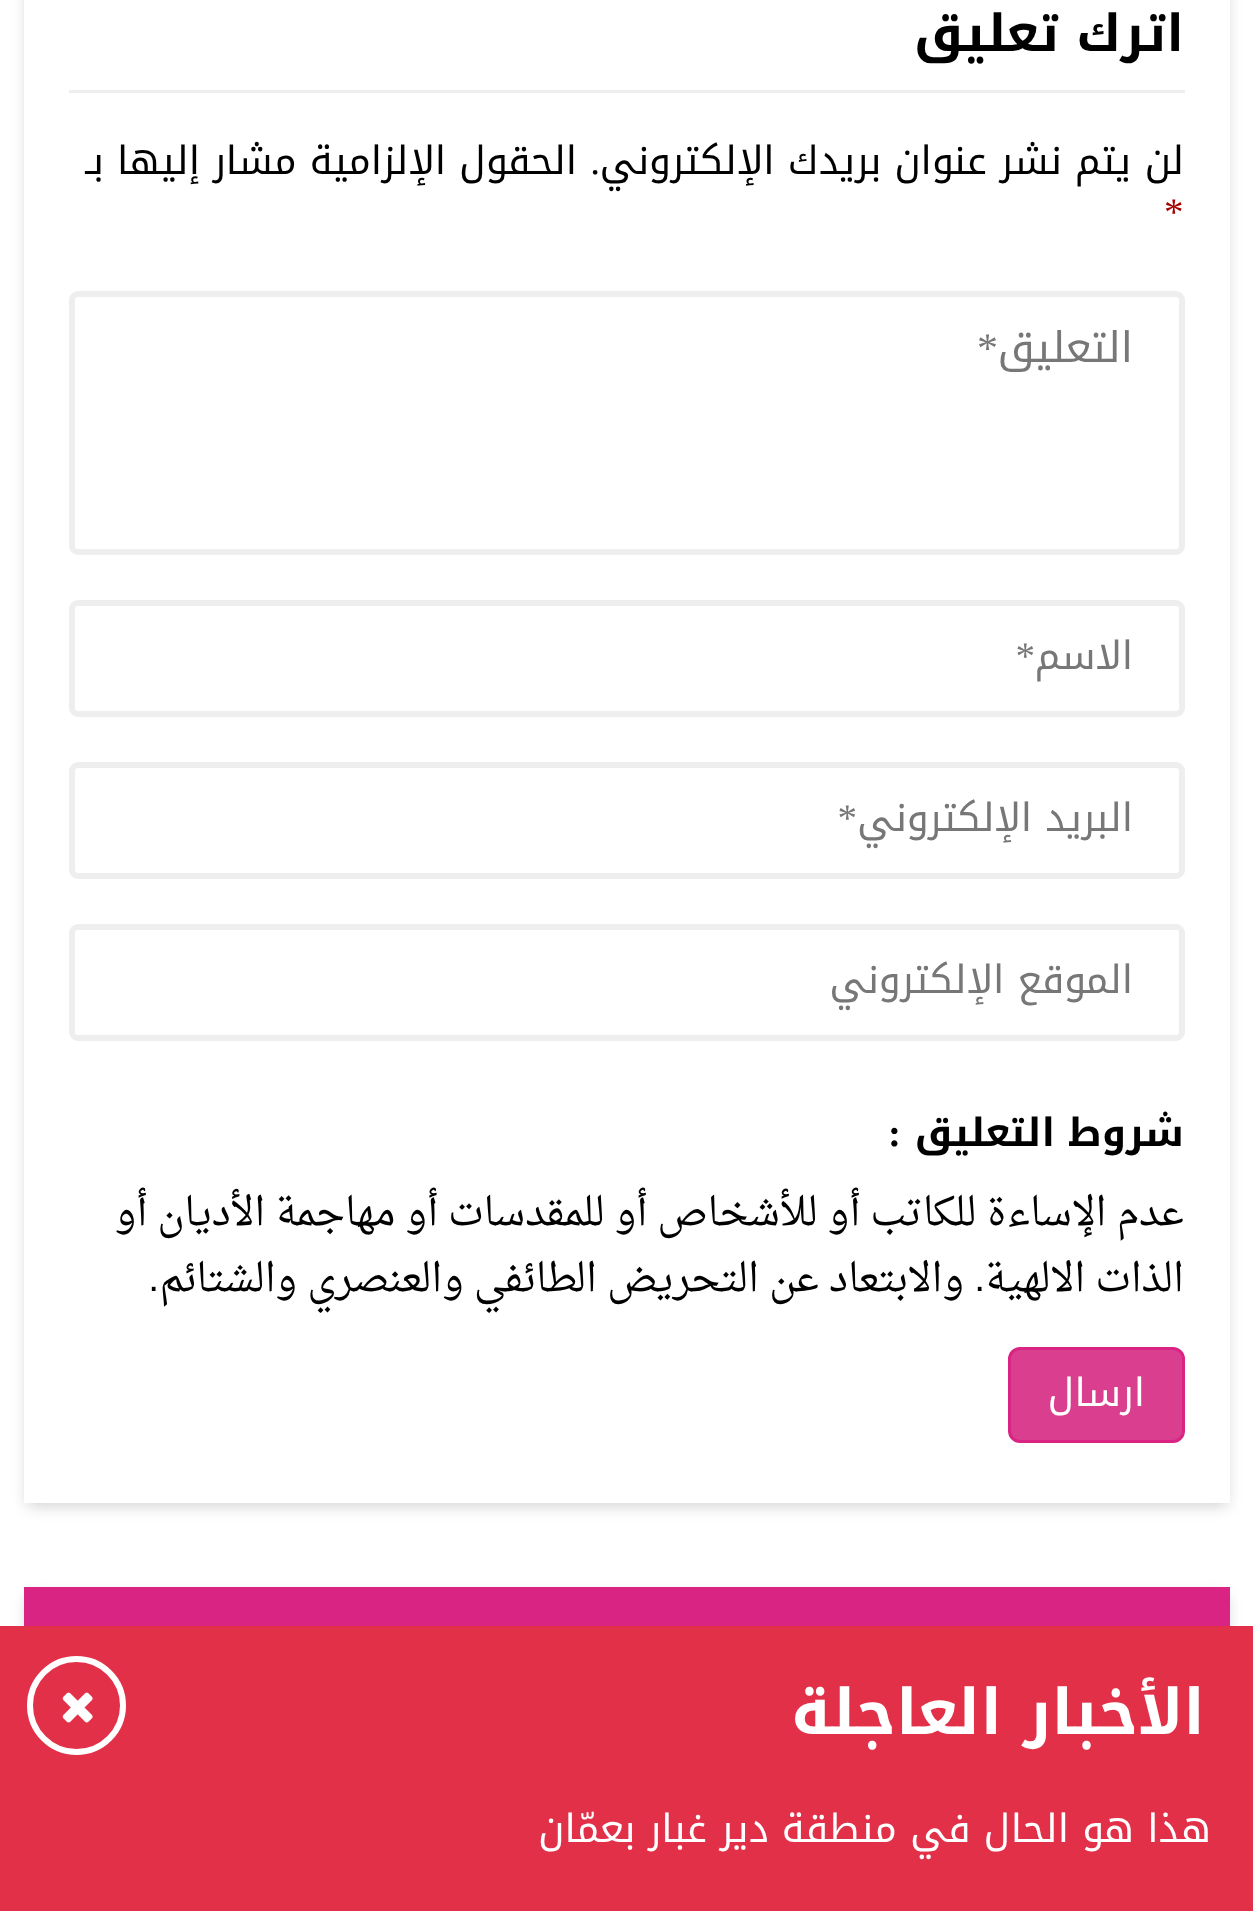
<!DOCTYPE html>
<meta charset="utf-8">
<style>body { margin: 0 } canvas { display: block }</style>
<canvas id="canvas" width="1253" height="1911"></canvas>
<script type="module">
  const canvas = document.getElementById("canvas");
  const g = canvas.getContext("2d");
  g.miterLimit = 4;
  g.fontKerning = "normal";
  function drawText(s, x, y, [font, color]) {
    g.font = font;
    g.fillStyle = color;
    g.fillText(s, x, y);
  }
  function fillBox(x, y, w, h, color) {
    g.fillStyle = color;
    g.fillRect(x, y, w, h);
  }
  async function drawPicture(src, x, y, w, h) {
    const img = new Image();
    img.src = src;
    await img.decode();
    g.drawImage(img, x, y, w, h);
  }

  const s1 = ["bold 51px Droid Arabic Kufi", "#000000"];
  const s2 = ["39px Droid Arabic Kufi", "#000000"];
  const s3 = ["39px Liberation Serif", "#000000"];
  const s4 = ["39px Liberation Serif", "#A80000"];
  const s5 = ["42px Droid Arabic Kufi", "#777777"];
  const s6 = ["42px Liberation Serif", "#777777"];
  const s7 = ["39px Droid Arabic Kufi", "#777777"];
  const s8 = ["39px Liberation Serif", "#777777"];
  const s9 = ["bold 39px Droid Arabic Kufi", "#000000"];
  const s10 = ["bold 39px Liberation Serif", "#000000"];
  const s11 = ["39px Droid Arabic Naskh", "#000000"];
  const s12 = ["39px Liberation Sans", "#000000"];
  const s13 = ["39px Droid Arabic Kufi", "#FFFFFF"];
  const s14 = ["bold 63px Droid Arabic Kufi", "#FFFFFF"];

  fillBox(0, 0, 1253, 1911, "#FFFFFF");
  g.save();
  g.beginPath();
  g.moveTo(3, 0);
  g.lineTo(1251, 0);
  g.lineTo(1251, 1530);
  g.lineTo(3, 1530);
  g.closePath();
  g.moveTo(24, -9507);
  g.lineTo(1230, -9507);
  g.lineTo(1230, 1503);
  g.lineTo(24, 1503);
  g.closePath();
  g.clip("evenodd");
  g.fillStyle = "#D1D1D1";
  g.filter = "blur(7.5px)";
  g.beginPath();
  g.rect(27, -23, 1200, 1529);
  g.fill();
  g.filter = "none";
  g.restore();
  fillBox(69, 90, 1116, 3, "#EEEEEE");
  g.direction = "rtl";
  drawText("اترك تعليق", 1184, 51, s1);
  drawText("لن يتم نشر عنوان بريدك الإلكتروني", 1184, 174, s2);
  drawText(".", 600, 174, s3);
  drawText("الحقول الإلزامية مشار إليها بـ", 577, 174, s2);
  g.direction = "ltr";
  drawText("*", 1164, 225, s4);
  g.beginPath();
  g.roundRect(72, 294, 1110, 258, 6);
  g.strokeStyle = "#EEEEEE";
  g.lineWidth = 6;
  g.stroke();
  g.direction = "rtl";
  drawText("التعليق", 1133, 362, s5);
  drawText("*", 998, 362, s6);
  g.beginPath();
  g.roundRect(72, 603, 1110, 111, 6);
  g.stroke();
  drawText("الاسم", 1133, 669, s7);
  drawText("*", 1035, 669, s8);
  g.beginPath();
  g.roundRect(72, 765, 1110, 111, 6);
  g.stroke();
  drawText("البريد الإلكتروني", 1133, 831, s7);
  drawText("*", 857, 831, s8);
  g.beginPath();
  g.roundRect(72, 927, 1110, 111, 6);
  g.stroke();
  drawText("الموقع الإلكتروني", 1133, 993, s7);
  drawText("شروط التعليق", 1184, 1146, s9);
  drawText(":", 901, 1146, s10);
  drawText("عدم الإساءة للكاتب أو للأشخاص أو للمقدسات أو مهاجمة الأديان أو", 1184, 1225, s11);
  drawText("الذات الالهية", 1184, 1291, s11);
  drawText(".", 985, 1291, s12);
  drawText("والابتعاد عن التحريض الطائفي والعنصري والشتائم", 964, 1291, s11);
  drawText(".", 159, 1291, s12);
  g.fillStyle = "#DA3E8F";
  g.beginPath();
  g.roundRect(1009.5, 1348.5, 174, 93, 10.5);
  g.fill();
  g.strokeStyle = "#DA2483";
  g.lineWidth = 3;
  g.stroke();
  drawText("ارسال", 1145, 1406, s13);
  g.fillStyle = "#D1D1D1";
  g.filter = "blur(7.5px)";
  g.beginPath();
  g.rect(27, 1596, 1200, 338);
  g.fill();
  g.filter = "none";
  fillBox(24, 1587, 1206, 39, "#DA2483");
  fillBox(0, 1626, 1253, 285, "#E33049");
  drawText("الأخبار العاجلة", 1205, 1734, s14);
  g.beginPath();
  g.arc(76.5, 1705.5, 46.5, 0, Math.PI * 2);
  g.strokeStyle = "#FFFFFF";
  g.lineWidth = 6;
  g.stroke();
  await drawPicture("pic1.png", 62, 1692, 31, 31);
  drawText("هذا هو الحال في منطقة دير غبار بعمّان", 1211, 1842, s13);
</script>
